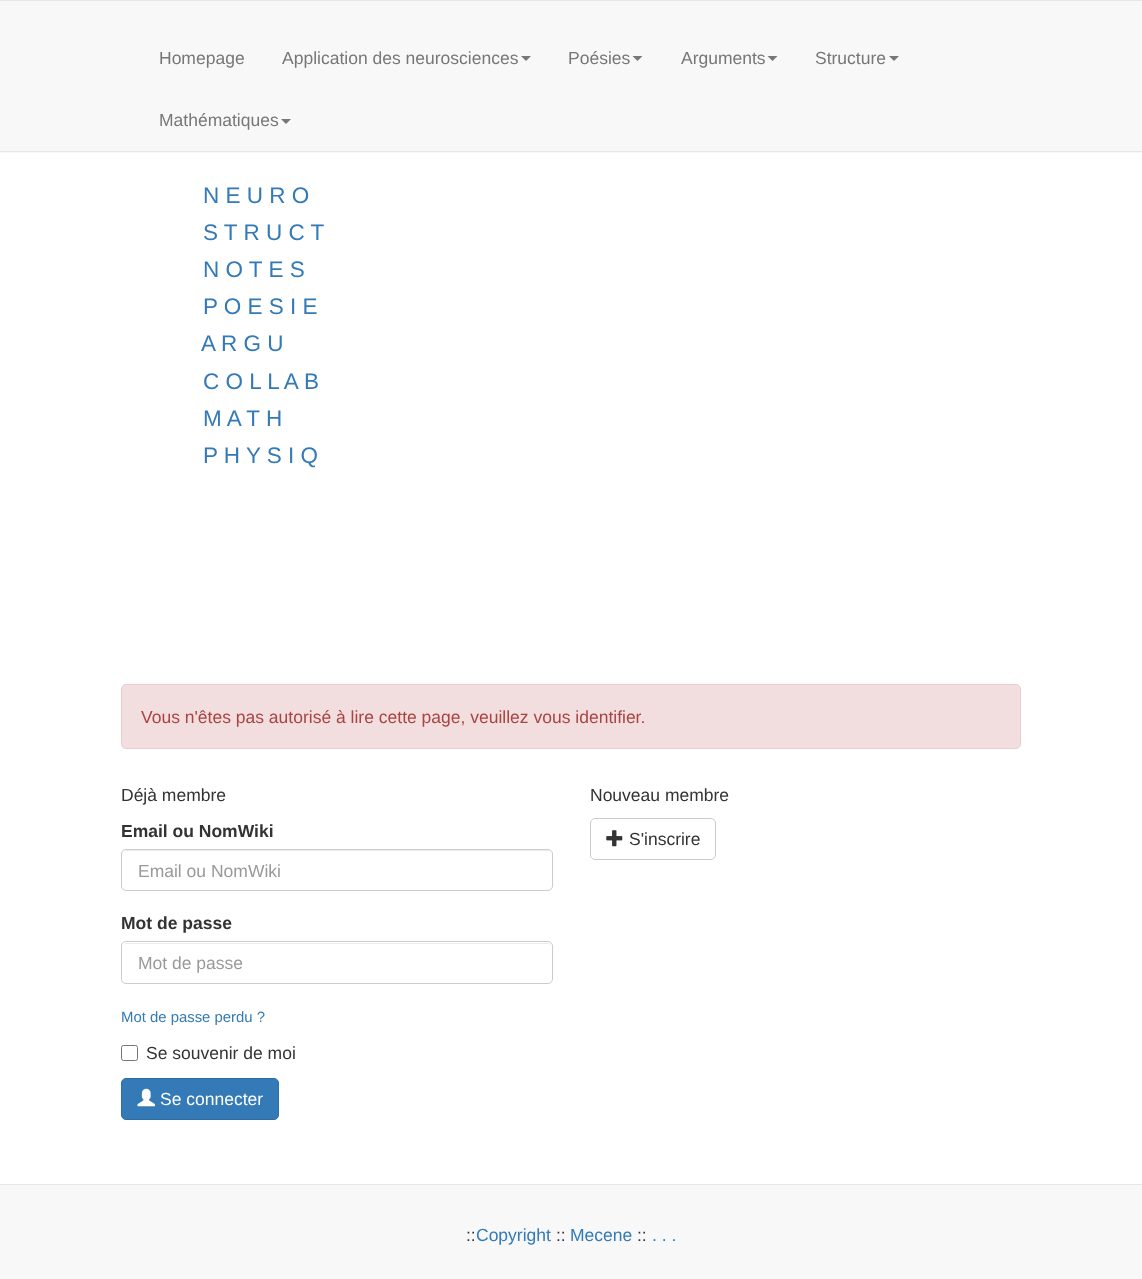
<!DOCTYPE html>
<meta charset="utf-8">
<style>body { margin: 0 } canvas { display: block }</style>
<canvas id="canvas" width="1142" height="1279"></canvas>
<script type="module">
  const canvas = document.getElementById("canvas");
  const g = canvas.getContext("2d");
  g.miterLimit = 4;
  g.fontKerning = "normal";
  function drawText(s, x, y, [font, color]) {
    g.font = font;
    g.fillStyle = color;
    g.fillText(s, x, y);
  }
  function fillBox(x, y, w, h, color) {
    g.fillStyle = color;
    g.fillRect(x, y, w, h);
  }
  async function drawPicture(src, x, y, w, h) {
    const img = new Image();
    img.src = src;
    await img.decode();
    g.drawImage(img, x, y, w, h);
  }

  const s1 = ["17.5px Liberation Sans", "#777777"];
  const s2 = ["22.5px Liberation Sans", "#337AB7"];
  const s3 = ["17.5px Liberation Sans", "#A94442"];
  const s4 = ["17.5px Liberation Sans", "#333333"];
  const s5 = ["bold 17.5px Liberation Sans", "#333333"];
  const s6 = ["17.5px Liberation Sans", "#999999"];
  const s7 = ["14.9px Liberation Sans", "#337AB7"];
  const s8 = ["17.5px Liberation Sans", "#FFFFFF"];
  const s9 = ["17.5px Liberation Sans", "#337AB7"];

  fillBox(0, 0, 1142, 1279, "#FFFFFF");
  fillBox(0, 1, 1142, 152, "#F8F8F8");
  fillBox(0, 0, 1142, 1, "#E7E7E7");
  fillBox(0, 151, 1142, 1, "#E7E7E7");
  drawText("Homepage", 159, 64, s1);
  drawText("Application des neurosciences", 282, 64, s1);
  g.beginPath();
  g.moveTo(521, 56);
  g.lineTo(531, 56);
  g.lineTo(526, 61);
  g.closePath();
  g.fill();
  drawText("Poésies", 568, 64, s1);
  g.beginPath();
  g.moveTo(632.5, 56);
  g.lineTo(642.5, 56);
  g.lineTo(637.5, 61);
  g.closePath();
  g.fill();
  drawText("Arguments", 681, 64, s1);
  g.beginPath();
  g.moveTo(767.5, 56);
  g.lineTo(777.5, 56);
  g.lineTo(772.5, 61);
  g.closePath();
  g.fill();
  drawText("Structure", 815, 64, s1);
  g.beginPath();
  g.moveTo(889, 56);
  g.lineTo(899, 56);
  g.lineTo(894, 61);
  g.closePath();
  g.fill();
  drawText("Mathématiques", 159, 126, s1);
  g.beginPath();
  g.moveTo(281, 119);
  g.lineTo(291, 119);
  g.lineTo(286, 124);
  g.closePath();
  g.fill();
  drawText("N E U R O", 203, 203, s2);
  drawText("S T R U C T", 203, 240, s2);
  drawText("N O T E S", 203, 277, s2);
  drawText("P O E S I E", 203, 314, s2);
  drawText("A R G U", 201, 351, s2);
  drawText("C O L L A B", 203, 389, s2);
  drawText("M A T H", 203, 426, s2);
  drawText("P H Y S I Q", 203, 463, s2);
  g.fillStyle = "#F2DEDE";
  g.beginPath();
  g.roundRect(121.5, 684.5, 899, 64, 4.5);
  g.fill();
  g.strokeStyle = "#EBCCD1";
  g.stroke();
  drawText("Vous n'êtes pas autorisé à lire cette page, veuillez vous identifier.", 141, 723, s3);
  drawText("Déjà membre", 121, 801, s4);
  drawText("Email ou NomWiki", 121, 837, s5);
  g.fillStyle = "#ECECEC";
  g.beginPath();
  g.moveTo(126, 851);
  g.lineTo(548, 851);
  g.bezierCurveTo(550, 851, 551, 853, 551, 855);
  g.lineTo(551, 854);
  g.bezierCurveTo(551, 852, 549, 850, 547, 850);
  g.lineTo(127, 850);
  g.bezierCurveTo(126, 850, 124, 851, 124, 852);
  g.closePath();
  g.fill();
  g.beginPath();
  g.roundRect(121.5, 849.5, 431, 41, 4.5);
  g.strokeStyle = "#CCCCCC";
  g.stroke();
  drawText("Email ou NomWiki", 138, 877, s6);
  drawText("Mot de passe", 121, 929, s5);
  g.fillStyle = "#ECECEC";
  g.beginPath();
  g.moveTo(126, 944);
  g.lineTo(548, 944);
  g.bezierCurveTo(550, 944, 551, 945, 551, 948);
  g.bezierCurveTo(551, 945, 550, 943, 547, 943);
  g.lineTo(126, 943);
  g.lineTo(124, 944);
  g.closePath();
  g.fill();
  g.beginPath();
  g.roundRect(121.5, 941.5, 431, 42, 4.5);
  g.stroke();
  drawText("Mot de passe", 138, 969, s6);
  drawText("Mot de passe perdu ?", 121, 1022, s7);
  g.beginPath();
  g.roundRect(121.5, 1045.5, 16, 15, 2);
  g.strokeStyle = "#767676";
  g.stroke();
  drawText("Se souvenir de moi", 146, 1059, s4);
  g.fillStyle = "#337AB7";
  g.beginPath();
  g.roundRect(121.5, 1078.5, 157, 41, 4.5);
  g.fill();
  g.strokeStyle = "#2E6DA4";
  g.stroke();
  await drawPicture("pic1.png", 137, 1088, 18, 19);
  drawText("Se connecter", 160, 1105, s8);
  drawText("Nouveau membre", 590, 801, s4);
  g.beginPath();
  g.roundRect(590.5, 818.5, 125, 41, 4.5);
  g.strokeStyle = "#CCCCCC";
  g.stroke();
  await drawPicture("pic2.png", 606, 830, 17, 17);
  drawText("S'inscrire", 629, 845, s4);
  fillBox(0, 1185, 1142, 94, "#F8F8F8");
  fillBox(0, 1184, 1142, 1, "#E7E7E7");
  drawText("::", 466, 1241, s4);
  drawText("Copyright", 476, 1241, s9);
  drawText("::", 556, 1241, s4);
  drawText("Mecene", 570, 1241, s9);
  drawText("::", 637, 1241, s4);
  drawText(". . .", 652, 1241, s9);
</script>
